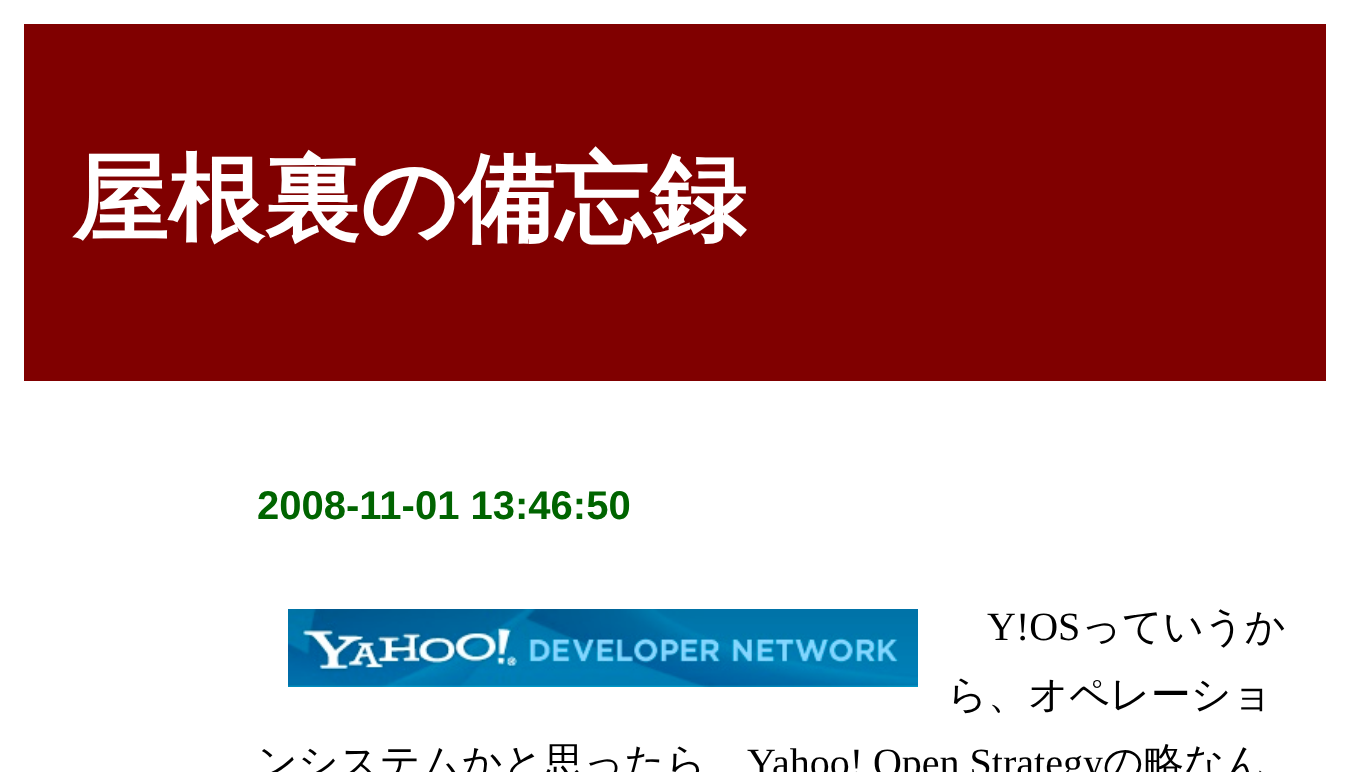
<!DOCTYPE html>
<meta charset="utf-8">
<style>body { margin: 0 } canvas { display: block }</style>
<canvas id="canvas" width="1350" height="772"></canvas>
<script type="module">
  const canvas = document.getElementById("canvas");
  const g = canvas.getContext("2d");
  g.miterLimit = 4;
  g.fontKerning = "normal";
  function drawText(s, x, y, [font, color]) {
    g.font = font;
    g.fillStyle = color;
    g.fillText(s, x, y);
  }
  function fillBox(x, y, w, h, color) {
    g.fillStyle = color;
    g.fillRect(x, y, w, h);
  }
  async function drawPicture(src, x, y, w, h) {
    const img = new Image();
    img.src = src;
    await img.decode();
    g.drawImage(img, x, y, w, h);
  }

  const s1 = ["bold 96px WenQuanYi Zen Hei", "#FFFFFF"];
  const s2 = ["bold 40px Liberation Sans", "#006400"];
  const s3 = ["40px Liberation Serif", "#000000"];
  const s4 = ["500 40px WenQuanYi Zen Hei", "#000000"];

  fillBox(0, 0, 1350, 772, "#FFFFFF");
  fillBox(24, 24, 1302, 357, "#800000");
  drawText("屋根裏の備忘録", 72, 232, s1);
  drawText("2008-11-01 13:46:50", 257, 519, s2);
  await drawPicture("pic1.png", 288, 609, 630, 78);
  drawText("Y!OS", 987, 640, s3);
  drawText("っていうか", 1081, 640, s4);
  drawText("ら、オペレーショ", 947, 708, s4);
  drawText("ンシステムかと思ったら", 257, 776, s4);
  drawText("Yahoo! Open Strategy", 747, 776, s3);
  drawText("の略なん", 1103, 776, s4);
</script>
